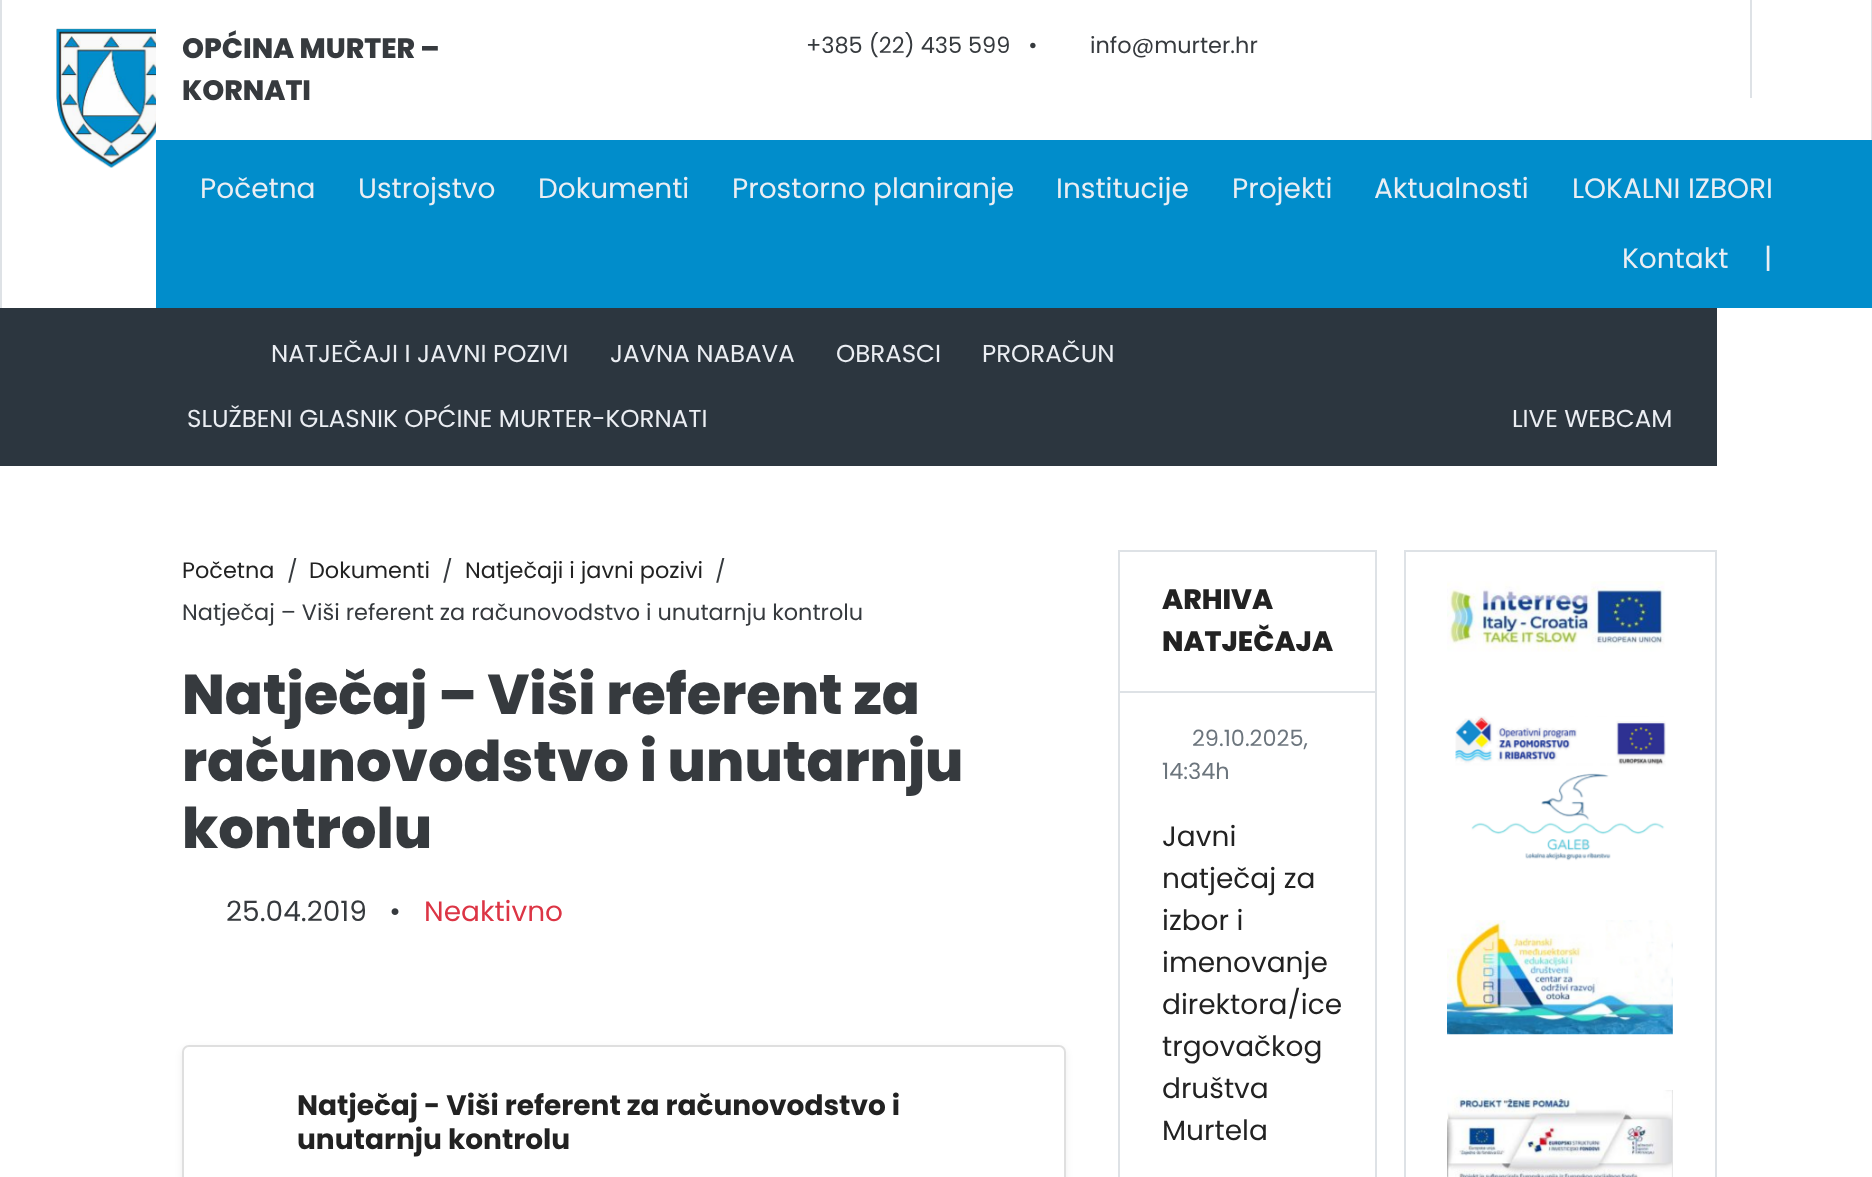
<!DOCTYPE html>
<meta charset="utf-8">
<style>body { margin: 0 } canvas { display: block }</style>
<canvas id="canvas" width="1872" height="1177"></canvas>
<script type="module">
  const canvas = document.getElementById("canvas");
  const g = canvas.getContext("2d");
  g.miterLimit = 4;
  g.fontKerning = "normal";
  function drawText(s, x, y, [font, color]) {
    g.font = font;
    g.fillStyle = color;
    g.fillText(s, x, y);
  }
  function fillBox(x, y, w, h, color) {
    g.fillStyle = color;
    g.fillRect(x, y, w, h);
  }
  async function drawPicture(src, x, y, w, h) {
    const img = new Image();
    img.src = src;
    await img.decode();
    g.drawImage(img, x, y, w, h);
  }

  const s1 = ["800 28px Poppins", "#363A3E"];
  const s2 = ["22.4px Poppins", "#363A3E"];
  const s3 = ["28px Poppins", "#EBEEF3"];
  const s4 = ["24.5px Poppins", "#EBEEF3"];
  const s5 = ["22.4px Poppins", "#222222"];
  const s6 = ["800 56px Poppins", "#363A3E"];
  const s7 = ["28px Poppins", "#363A3E"];
  const s8 = ["28px Poppins", "#DC3545"];
  const s9 = ["bold 28px Poppins", "#222222"];
  const s10 = ["800 28px Poppins", "#222222"];
  const s11 = ["22.4px Poppins", "#6C757D"];
  const s12 = ["28px Poppins", "#222222"];

  fillBox(0, 0, 1872, 1177, "#FFFFFF");
  fillBox(0, 0, 2, 308, "#DEE2E6");
  await drawPicture("pic1.png", 56, 28, 100, 140);
  drawText("OPĆINA MURTER –", 182, 58, s1);
  drawText("KORNATI", 182, 100, s1);
  drawText("+385 (22) 435 599   •", 806, 53, s2);
  drawText("info@murter.hr", 1090, 53, s2);
  fillBox(1871, 0, 1, 140, "#DEE2E6");
  fillBox(1750, 0, 2, 98, "#DEE2E6");
  fillBox(156, 140, 1716, 168, "#018DCB");
  drawText("Početna", 200, 198, s3);
  drawText("Ustrojstvo", 358, 198, s3);
  drawText("Dokumenti", 538, 198, s3);
  drawText("Prostorno planiranje", 732, 198, s3);
  drawText("Institucije", 1056, 198, s3);
  drawText("Projekti", 1232, 198, s3);
  drawText("Aktualnosti", 1374, 198, s3);
  drawText("LOKALNI IZBORI", 1572, 198, s3);
  drawText("Kontakt", 1622, 268, s3);
  drawText("|", 1764, 268, s3);
  fillBox(0, 308, 1717, 158, "#2C363F");
  drawText("NATJEČAJI I JAVNI POZIVI", 271, 362, s4);
  drawText("JAVNA NABAVA", 610, 362, s4);
  drawText("OBRASCI", 836, 362, s4);
  drawText("PRORAČUN", 982, 362, s4);
  drawText("SLUŽBENI GLASNIK OPĆINE MURTER-KORNATI", 187, 427, s4);
  drawText("LIVE WEBCAM", 1512, 427, s4);
  drawText("Početna", 182, 578, s5);
  drawText("/", 287, 579, s2);
  drawText("Dokumenti", 309, 578, s5);
  drawText("/", 442, 579, s2);
  drawText("Natječaji i javni pozivi", 465, 578, s5);
  drawText("/", 715, 579, s2);
  drawText("Natječaj – Viši referent za računovodstvo i unutarnju kontrolu", 182, 620, s2);
  drawText("Natječaj – Viši referent za", 182, 714, s6);
  drawText("računovodstvo i unutarnju", 182, 781, s6);
  drawText("kontrolu", 182, 848, s6);
  drawText("25.04.2019   •", 226, 921, s7);
  drawText("Neaktivno", 424, 921, s8);
  g.fillStyle = "rgba(0, 0, 0, 0.07)";
  g.filter = "blur(3.5px)";
  g.beginPath();
  g.roundRect(182, 1048, 884, 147, 7);
  g.fill();
  g.filter = "none";
  g.fillStyle = "#FFFFFF";
  g.beginPath();
  g.roundRect(183, 1046, 882, 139, 6);
  g.fill();
  g.strokeStyle = "#DFDFDF";
  g.lineWidth = 2;
  g.stroke();
  drawText("Natječaj - Viši referent za računovodstvo i", 297, 1115, s9);
  drawText("unutarnju kontrolu", 297, 1149, s9);
  g.strokeStyle = "#DEE2E6";
  g.strokeRect(1119, 551, 257, 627);
  drawText("ARHIVA", 1162, 609, s10);
  drawText("NATJEČAJA", 1162, 651, s10);
  fillBox(1120, 691, 256, 2, "#DEE2E6");
  drawText("29.10.2025,", 1192, 746, s11);
  drawText("14:34h", 1162, 779, s11);
  drawText("Javni", 1162, 846, s12);
  drawText("natječaj za", 1162, 888, s12);
  drawText("izbor i", 1162, 930, s12);
  drawText("imenovanje", 1162, 972, s12);
  drawText("direktora/ice", 1162, 1014, s12);
  drawText("trgovačkog", 1162, 1056, s12);
  drawText("društva", 1162, 1098, s12);
  drawText("Murtela", 1162, 1140, s12);
  g.strokeRect(1405, 551, 311, 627);
  await drawPicture("pic2.png", 1447, 581, 218, 71);
  await drawPicture("pic3.png", 1455, 716, 211, 145);
  await drawPicture("pic4.png", 1447, 920, 226, 115);
  await drawPicture("pic5.png", 1447, 1090, 226, 87);
</script>
